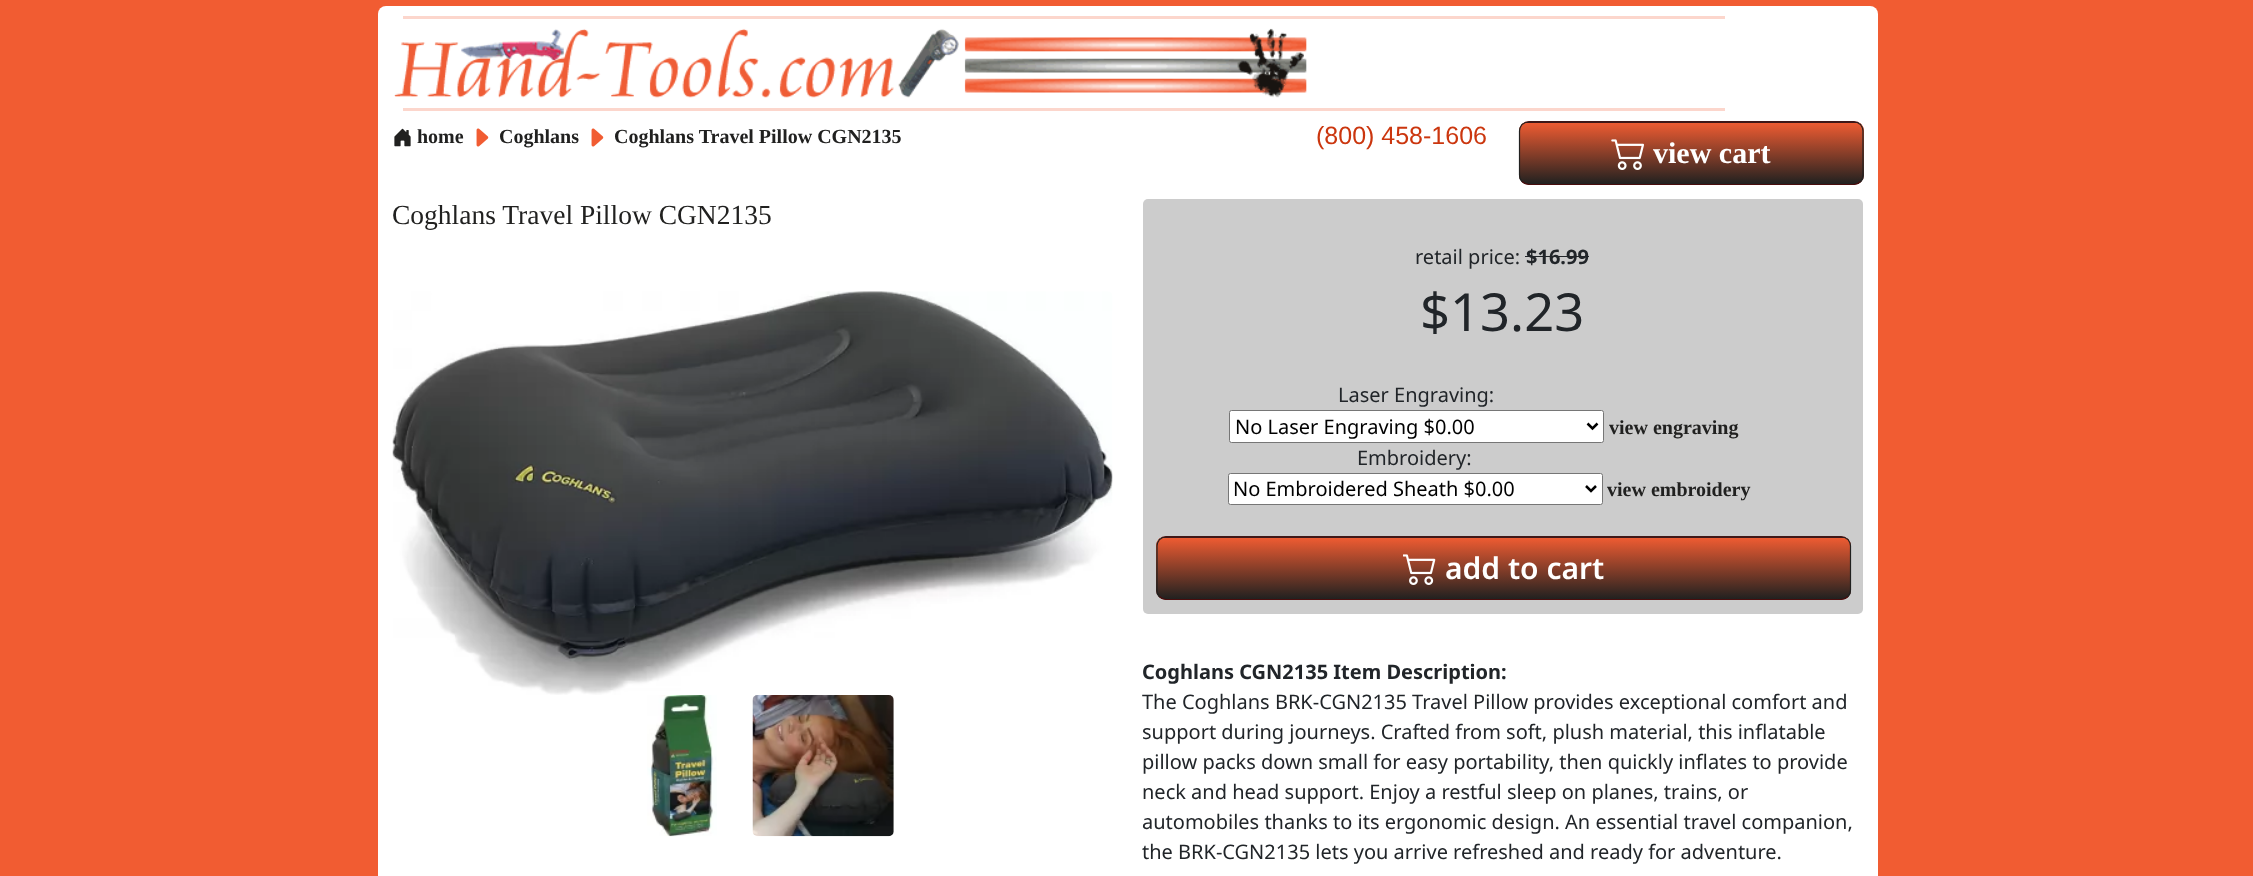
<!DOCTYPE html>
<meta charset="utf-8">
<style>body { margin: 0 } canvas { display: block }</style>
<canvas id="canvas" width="2253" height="876"></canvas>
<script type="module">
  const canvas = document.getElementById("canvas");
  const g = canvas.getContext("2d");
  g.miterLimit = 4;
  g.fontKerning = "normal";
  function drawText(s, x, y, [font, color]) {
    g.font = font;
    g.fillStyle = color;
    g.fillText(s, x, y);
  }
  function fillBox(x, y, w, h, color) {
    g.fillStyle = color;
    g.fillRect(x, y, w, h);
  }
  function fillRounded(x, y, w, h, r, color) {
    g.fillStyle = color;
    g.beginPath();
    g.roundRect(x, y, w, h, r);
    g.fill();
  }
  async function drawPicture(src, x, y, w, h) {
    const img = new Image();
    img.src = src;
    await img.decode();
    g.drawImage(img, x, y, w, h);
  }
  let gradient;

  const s1 = ["bold 20px Liberation Serif", "#212120"];
  const s2 = ["25px Liberation Sans", "#CB360E"];
  const s3 = ["bold 30px Liberation Serif", "#FFFFFF"];
  const s4 = ["27.5px Liberation Serif", "#212120"];
  const s5 = ["20px Noto Sans", "#212529"];
  const s6 = ["bold 20px Noto Sans", "#212529"];
  const s7 = ["52.5px Noto Sans", "#212529"];
  const s8 = ["20px Noto Sans", "#000000"];
  const s9 = ["600 30px Noto Sans", "#FFFFFF"];

  fillBox(0, 0, 2253, 876, "#F15C32");
  fillRounded(378, 6, 1500, 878, 8, "#FFFFFF");
  fillBox(403, 16, 1322, 3, "#FCD6CC");
  await drawPicture("pic1.png", 394, 28, 913, 70);
  fillBox(403, 108, 1322, 3, "#FCD6CC");
  await drawPicture("pic2.png", 394, 128, 17, 19);
  drawText("home", 417, 143, s1);
  await drawPicture("pic3.png", 476, 128, 13, 19);
  drawText("Coghlans", 499, 143, s1);
  await drawPicture("pic3.png", 591, 128, 13, 19);
  drawText("Coghlans Travel Pillow CGN2135", 614, 143, s1);
  drawText("(800) 458-1606", 1316, 144, s2);
  fillRounded(1519, 121, 345, 64, 10, "#5F1111");
  g.save();
  g.beginPath();
  g.roundRect(1519, 121, 345, 64, 10);
  g.clip();
  gradient = g.createLinearGradient(1691, 122, 1691, 184);
  gradient.addColorStop(0, "#F15C32");
  gradient.addColorStop(1, "#212120");
  g.fillStyle = gradient;
  g.fillRect(1519, 123, 345, 61);
  g.restore();
  g.beginPath();
  g.moveTo(1860.5, 181.5);
  g.bezierCurveTo(1858.5, 183.5, 1856, 184.5, 1854, 184.5);
  g.lineTo(1529, 184.5);
  g.bezierCurveTo(1526.5, 184.5, 1524, 183.5, 1522, 181.5);
  g.strokeStyle = "#490D0D";
  g.lineWidth = 1.2;
  g.stroke();
  g.beginPath();
  g.moveTo(1522, 181.5);
  g.bezierCurveTo(1520.5, 180, 1519.5, 177.5, 1519.5, 175);
  g.lineTo(1519.5, 131);
  g.bezierCurveTo(1519.5, 129, 1520.5, 126.5, 1522, 124.5);
  g.bezierCurveTo(1524, 123, 1526.5, 122, 1529, 122);
  g.lineTo(1854, 122);
  g.bezierCurveTo(1856, 122, 1858.5, 123, 1860.5, 124.5);
  g.bezierCurveTo(1862, 126.5, 1863, 129, 1863, 131);
  g.lineTo(1863, 175);
  g.bezierCurveTo(1863, 177.5, 1862, 180, 1860.5, 181.5);
  g.strokeStyle = "#212120";
  g.stroke();
  await drawPicture("pic4.png", 1611, 139, 33, 31);
  drawText("view cart", 1653, 163, s3);
  drawText("Coghlans Travel Pillow CGN2135", 392, 224, s4);
  await drawPicture("pic5.png", 392, 291, 721, 404);
  await drawPicture("pic6.png", 647, 695, 70, 142);
  await drawPicture("pic7.png", 752, 695, 142, 142);
  fillRounded(1143, 199, 720, 415, 5, "#CCCCCC");
  drawText("retail price:", 1415, 264, s5);
  drawText("$16.99", 1526, 264, s6);
  fillBox(1525, 256, 64, 1, "#212529");
  drawText("$13.23", 1420, 331, s7);
  drawText("Laser Engraving:", 1338, 402, s5);
  g.fillStyle = "#FFFFFF";
  g.beginPath();
  g.roundRect(1229.5, 410.5, 374, 32, 2);
  g.fill();
  g.strokeStyle = "#767676";
  g.lineWidth = 1;
  g.stroke();
  g.beginPath();
  g.moveTo(1587.5, 423.5);
  g.lineTo(1592.5, 428.5);
  g.lineTo(1597.5, 423.5);
  g.strokeStyle = "#000000";
  g.lineWidth = 2.5;
  g.stroke();
  drawText("No Laser Engraving $0.00", 1235, 434, s8);
  drawText("view engraving", 1609, 434, s1);
  drawText("Embroidery:", 1357, 465, s5);
  g.fillStyle = "#FFFFFF";
  g.beginPath();
  g.roundRect(1228.5, 473.5, 374, 31, 2);
  g.fill();
  g.strokeStyle = "#767676";
  g.lineWidth = 1;
  g.stroke();
  g.beginPath();
  g.moveTo(1586, 486);
  g.lineTo(1591, 491);
  g.lineTo(1596, 486);
  g.strokeStyle = "#000000";
  g.lineWidth = 2.5;
  g.stroke();
  drawText("No Embroidered Sheath $0.00", 1233, 496, s8);
  drawText("view embroidery", 1607, 496, s1);
  fillRounded(1156, 536, 695, 64, 10, "#5F1111");
  g.save();
  g.beginPath();
  g.roundRect(1156, 536, 695, 64, 10);
  g.clip();
  gradient = g.createLinearGradient(1504, 537, 1504, 599);
  gradient.addColorStop(0, "#F15C32");
  gradient.addColorStop(1, "#212120");
  g.fillStyle = gradient;
  g.fillRect(1156, 538, 695, 61);
  g.restore();
  g.beginPath();
  g.moveTo(1848, 596.5);
  g.bezierCurveTo(1846, 598.5, 1843.5, 599.5, 1841, 599.5);
  g.lineTo(1166, 599.5);
  g.bezierCurveTo(1164, 599.5, 1161.5, 598.5, 1159.5, 596.5);
  g.strokeStyle = "#490D0D";
  g.lineWidth = 1.2;
  g.stroke();
  g.beginPath();
  g.moveTo(1159.5, 596.5);
  g.bezierCurveTo(1158, 595, 1157, 592.5, 1157, 590);
  g.lineTo(1157, 546);
  g.bezierCurveTo(1157, 544, 1158, 541.5, 1159.5, 539.5);
  g.bezierCurveTo(1161.5, 538, 1164, 537, 1166, 537);
  g.lineTo(1841, 537);
  g.bezierCurveTo(1843.5, 537, 1846, 538, 1848, 539.5);
  g.bezierCurveTo(1849.5, 541.5, 1850.5, 544, 1850.5, 546);
  g.lineTo(1850.5, 590);
  g.bezierCurveTo(1850.5, 592.5, 1849.5, 595, 1848, 596.5);
  g.strokeStyle = "#212120";
  g.stroke();
  await drawPicture("pic8.png", 1403, 554, 33, 31);
  drawText("add to cart", 1445, 579, s9);
  drawText("Coghlans CGN2135 Item Description:", 1142, 679, s6);
  drawText("The Coghlans BRK-CGN2135 Travel Pillow provides exceptional comfort and", 1142, 709, s5);
  drawText("support during journeys. Crafted from soft, plush material, this inflatable", 1142, 739, s5);
  drawText("pillow packs down small for easy portability, then quickly inflates to provide", 1142, 769, s5);
  drawText("neck and head support. Enjoy a restful sleep on planes, trains, or", 1142, 799, s5);
  drawText("automobiles thanks to its ergonomic design. An essential travel companion,", 1142, 829, s5);
  drawText("the BRK-CGN2135 lets you arrive refreshed and ready for adventure.", 1142, 859, s5);
</script>
